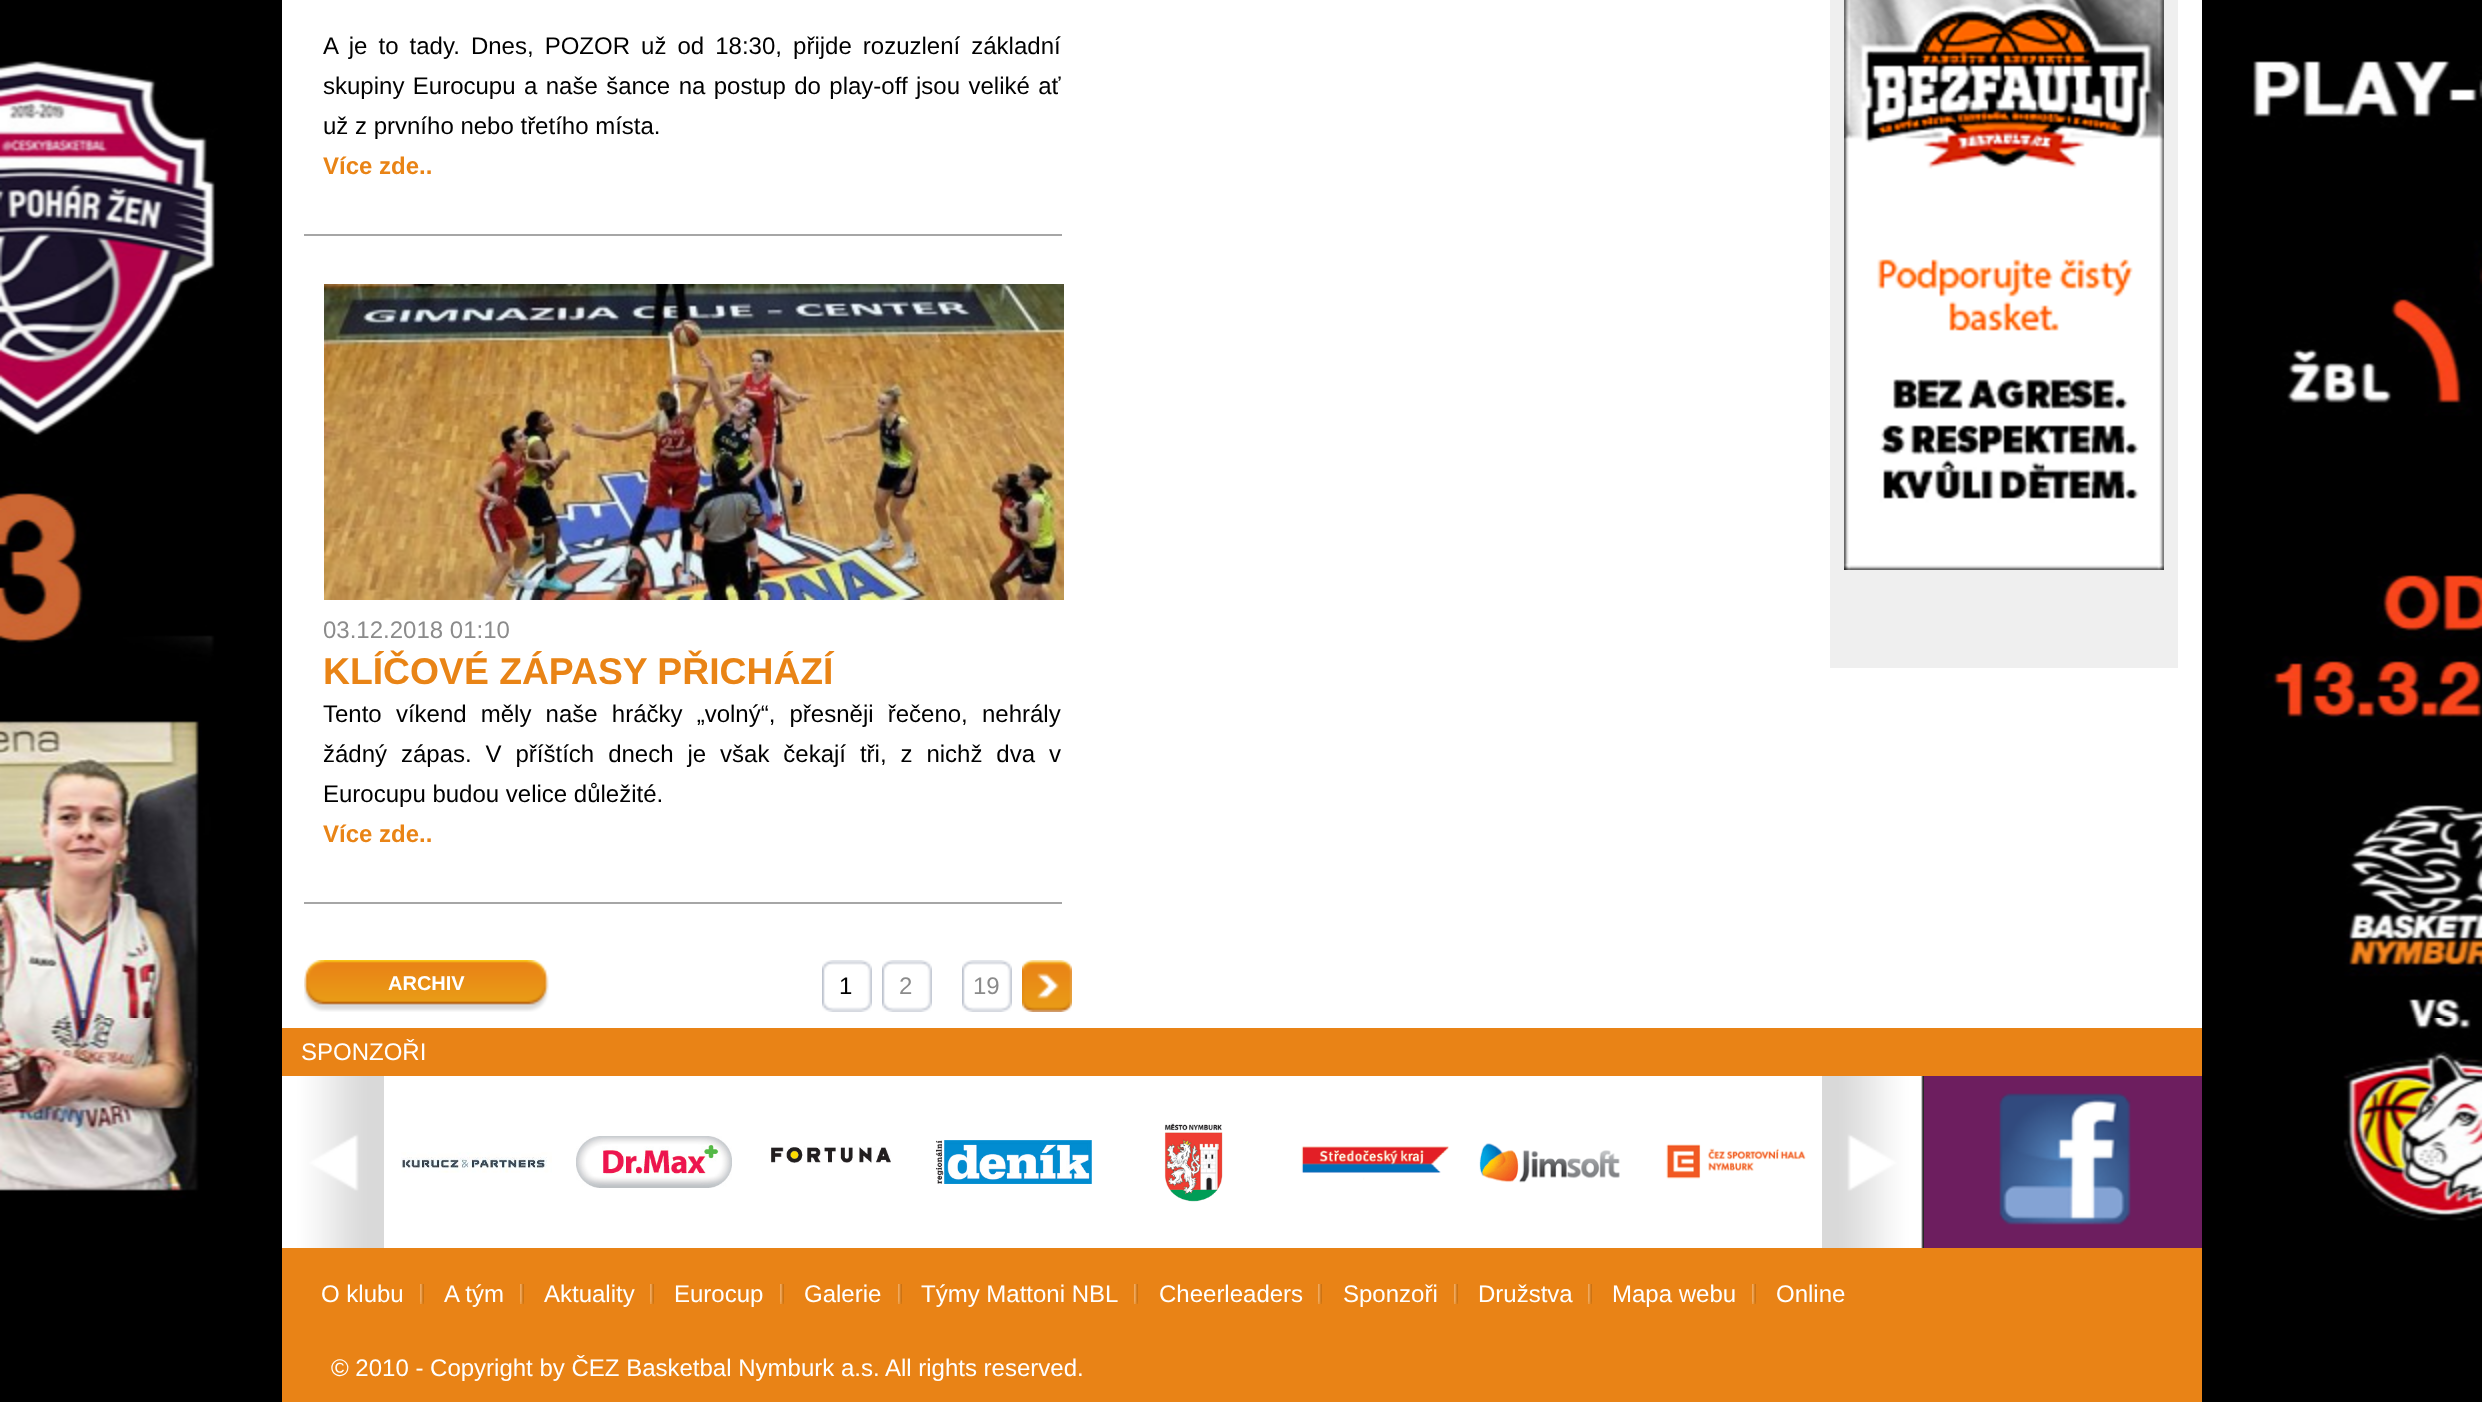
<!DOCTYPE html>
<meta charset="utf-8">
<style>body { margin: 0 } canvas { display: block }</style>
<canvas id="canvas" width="2482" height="1402"></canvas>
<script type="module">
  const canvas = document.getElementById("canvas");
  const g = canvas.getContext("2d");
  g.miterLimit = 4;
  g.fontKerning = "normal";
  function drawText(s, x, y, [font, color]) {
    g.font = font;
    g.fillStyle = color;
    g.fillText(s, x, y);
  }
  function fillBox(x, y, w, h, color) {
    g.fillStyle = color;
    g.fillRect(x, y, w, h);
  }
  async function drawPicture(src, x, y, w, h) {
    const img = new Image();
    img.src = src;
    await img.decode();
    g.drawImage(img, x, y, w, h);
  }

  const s1 = ["24px Liberation Sans", "#000000"];
  const s2 = ["bold 24px Liberation Sans", "#E98416"];
  const s3 = ["24px Liberation Sans", "#8B8B8B"];
  const s4 = ["bold 37.3px Liberation Sans", "#E98416"];
  const s5 = ["bold 20px Liberation Sans", "#FFFFFF"];
  const s6 = ["24px Liberation Sans", "#FFFFFF"];

  fillBox(0, 0, 2482, 1402, "#000000");
  await drawPicture("pic1.png", 0, 61, 2482, 1160);
  fillBox(282, 0, 1920, 1028, "#FFFFFF");
  fillBox(304, 234, 758, 2, "#A6A6A6");
  g.wordSpacing = "4.4px";
  drawText("A je to tady. Dnes, POZOR už od 18:30, přijde rozuzlení základní", 323, 54, s1);
  g.wordSpacing = "1.75px";
  drawText("skupiny Eurocupu a naše šance na postup do play-off jsou veliké ať", 323, 94, s1);
  g.wordSpacing = "0px";
  drawText("už z prvního nebo třetího místa.", 323, 134, s1);
  drawText("Více zde..", 323, 174, s2);
  fillBox(304, 902, 758, 2, "#A6A6A6");
  await drawPicture("pic2.png", 324, 284, 740, 316);
  drawText("03.12.2018 01:10", 323, 638, s3);
  drawText("KLÍČOVÉ ZÁPASY PŘICHÁZÍ", 323, 684, s4);
  g.wordSpacing = "7.5px";
  drawText("Tento víkend měly naše hráčky „volný“, přesněji řečeno, nehrály", 323, 722, s1);
  g.wordSpacing = "7.25px";
  drawText("žádný zápas. V příštích dnech je však čekají tři, z nichž dva v", 323, 762, s1);
  g.wordSpacing = "0px";
  drawText("Eurocupu budou velice důležité.", 323, 802, s1);
  drawText("Více zde..", 323, 842, s2);
  await drawPicture("pic3.png", 304, 960, 245, 52);
  drawText("ARCHIV", 388, 990, s5);
  await drawPicture("pic4.png", 822, 960, 50, 52);
  drawText("1", 839, 994, s1);
  await drawPicture("pic4.png", 882, 960, 50, 52);
  drawText("2", 899, 994, s3);
  await drawPicture("pic4.png", 962, 960, 50, 52);
  drawText("19", 973, 994, s3);
  await drawPicture("pic5.png", 1022, 960, 50, 52);
  fillBox(1830, 0, 348, 668, "#EFEFEF");
  await drawPicture("pic6.png", 1844, 0, 320, 570);
  fillBox(282, 1028, 1920, 374, "#E98316");
  drawText("SPONZOŘI", 301, 1060, s6);
  await drawPicture("pic7.png", 282, 1076, 102, 172);
  fillBox(384, 1076, 1438, 172, "#FFFFFF");
  await drawPicture("pic8.png", 401, 1152, 151, 21);
  await drawPicture("pic9.png", 576, 1136, 156, 52);
  await drawPicture("pic10.png", 771, 1146, 120, 17);
  await drawPicture("pic11.png", 936, 1140, 156, 44);
  await drawPicture("pic12.png", 1164, 1123, 59, 79);
  await drawPicture("pic13.png", 1301, 1146, 148, 34);
  await drawPicture("pic14.png", 1479, 1143, 141, 40);
  await drawPicture("pic15.png", 1666, 1144, 140, 35);
  await drawPicture("pic16.png", 1822, 1076, 102, 172);
  await drawPicture("pic17.png", 1924, 1076, 278, 172);
  await drawPicture("pic18.png", 420, 1284, 4, 20);
  drawText("O klubu", 321, 1302, s6);
  await drawPicture("pic18.png", 520, 1284, 4, 20);
  drawText("A tým", 444, 1302, s6);
  await drawPicture("pic18.png", 650, 1284, 4, 20);
  drawText("Aktuality", 544, 1302, s6);
  await drawPicture("pic18.png", 780, 1284, 4, 20);
  drawText("Eurocup", 674, 1302, s6);
  await drawPicture("pic18.png", 898, 1284, 4, 20);
  drawText("Galerie", 804, 1302, s6);
  await drawPicture("pic18.png", 1134, 1284, 4, 20);
  drawText("Týmy Mattoni NBL", 921, 1302, s6);
  await drawPicture("pic18.png", 1318, 1284, 4, 20);
  drawText("Cheerleaders", 1159, 1302, s6);
  await drawPicture("pic18.png", 1454, 1284, 4, 20);
  drawText("Sponzoři", 1343, 1302, s6);
  await drawPicture("pic18.png", 1588, 1284, 4, 20);
  drawText("Družstva", 1478, 1302, s6);
  await drawPicture("pic18.png", 1752, 1284, 4, 20);
  drawText("Mapa webu", 1612, 1302, s6);
  drawText("Online", 1776, 1302, s6);
  drawText("© 2010 - Copyright by ČEZ Basketbal Nymburk a.s. All rights reserved.", 331, 1376, s6);
</script>
